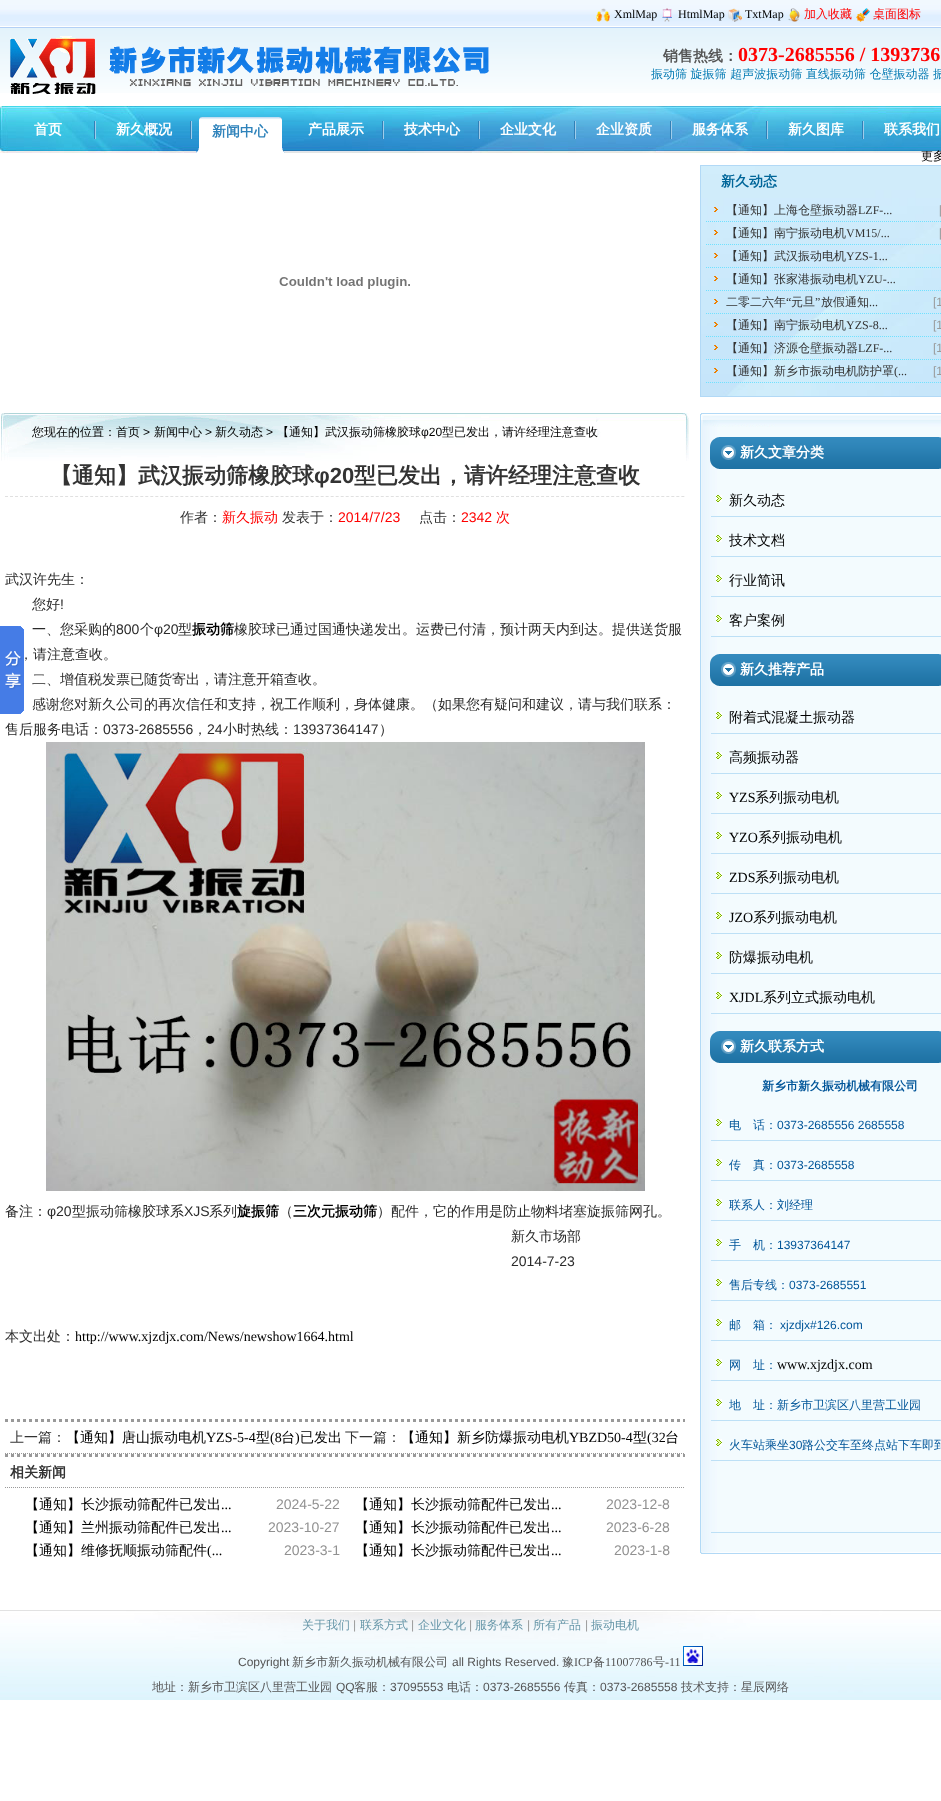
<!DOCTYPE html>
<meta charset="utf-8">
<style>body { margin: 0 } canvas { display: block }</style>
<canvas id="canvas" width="941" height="1801"></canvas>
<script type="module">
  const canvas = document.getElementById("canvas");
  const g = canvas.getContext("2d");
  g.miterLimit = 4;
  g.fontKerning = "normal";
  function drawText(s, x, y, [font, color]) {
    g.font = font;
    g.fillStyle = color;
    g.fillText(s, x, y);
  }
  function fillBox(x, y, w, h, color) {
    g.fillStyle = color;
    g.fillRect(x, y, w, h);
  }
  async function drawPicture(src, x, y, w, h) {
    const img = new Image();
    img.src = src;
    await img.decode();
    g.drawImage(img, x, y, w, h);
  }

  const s1 = ["12px Liberation Serif", "#000000"];
  const s2 = ["500 12px WenQuanYi Zen Hei", "#FF0000"];
  const s3 = ["bold 15px WenQuanYi Zen Hei", "#555555"];
  const s4 = ["bold 20px Liberation Serif", "#FF0000"];
  const s5 = ["500 12px WenQuanYi Zen Hei", "#0279B3"];
  const s6 = ["bold 14px WenQuanYi Zen Hei", "#FFFFFF"];
  const s7 = ["bold 14px WenQuanYi Zen Hei", "#2F83BB"];
  const s8 = ["500 12px WenQuanYi Zen Hei", "#000000"];
  const s9 = ["bold 14px WenQuanYi Zen Hei", "#006699"];
  const s10 = ["500 12px WenQuanYi Zen Hei", "#333333"];
  const s11 = ["12px Liberation Serif", "#333333"];
  const s12 = ["12px Liberation Sans", "#999999"];
  const s13 = ["12px Liberation Sans", "#000000"];
  const s14 = ["bold 22px WenQuanYi Zen Hei", "#333333"];
  const s15 = ["bold 22px Liberation Sans", "#333333"];
  const s16 = ["500 14px WenQuanYi Zen Hei", "#333333"];
  const s17 = ["500 14px WenQuanYi Zen Hei", "#FF0000"];
  const s18 = ["14px Liberation Sans", "#FF0000"];
  const s19 = ["500 14px WenQuanYi Zen Hei", "#2A2A2A"];
  const s20 = ["14px Liberation Sans", "#2A2A2A"];
  const s21 = ["bold 14px WenQuanYi Zen Hei", "#000000"];
  const s22 = ["14px Liberation Serif", "#000000"];
  const s23 = ["500 14px WenQuanYi Zen Hei", "#000000"];
  const s24 = ["bold 14px WenQuanYi Zen Hei", "#333333"];
  const s25 = ["14px Liberation Sans", "#919191"];
  const s26 = ["bold 12px WenQuanYi Zen Hei", "#005599"];
  const s27 = ["500 12px WenQuanYi Zen Hei", "#005599"];
  const s28 = ["12px Liberation Sans", "#005599"];
  const s29 = ["500 12px WenQuanYi Zen Hei", "#6696A8"];
  const s30 = ["12px Liberation Sans", "#555555"];
  const s31 = ["500 12px WenQuanYi Zen Hei", "#555555"];
  const s32 = ["12px Liberation Serif", "#555555"];

  fillBox(0, 0, 941, 1801, "#FFFFFF");
  await drawPicture("pic1.png", 0, 28, 941, 65);
  await drawPicture("pic2.png", 0, 0, 941, 28);
  await drawPicture("pic3.png", 596, 8, 14, 14);
  drawText("XmlMap", 614, 18, s1);
  await drawPicture("pic4.png", 662, 8, 10, 14);
  drawText("HtmlMap", 678, 18, s1);
  await drawPicture("pic5.png", 728, 8, 14, 14);
  drawText("TxtMap", 745, 18, s1);
  await drawPicture("pic6.png", 788, 8, 12, 14);
  drawText("加入收藏", 804, 18, s2);
  await drawPicture("pic7.png", 856, 8, 14, 14);
  drawText("桌面图标", 873, 18, s2);
  await drawPicture("pic8.png", 10, 36, 479, 58);
  drawText("销售热线：", 663, 61, s3);
  drawText("0373-2685556 / 1393736", 738, 61, s4);
  drawText("振动筛 旋振筛 超声波振动筛 直线振动筛 仓壁振动器 振", 651, 78, s5);
  await drawPicture("pic9.png", 0, 106, 941, 47);
  await drawPicture("pic10.png", 94, 121, 2, 18);
  drawText("首页", 34, 134, s6);
  await drawPicture("pic10.png", 190, 121, 2, 18);
  drawText("新久概况", 116, 134, s6);
  await drawPicture("pic11.png", 196, 117, 89, 36);
  drawText("新闻中心", 212, 136, s7);
  await drawPicture("pic10.png", 382, 121, 2, 18);
  drawText("产品展示", 308, 134, s6);
  await drawPicture("pic10.png", 478, 121, 2, 18);
  drawText("技术中心", 404, 134, s6);
  await drawPicture("pic10.png", 574, 121, 2, 18);
  drawText("企业文化", 500, 134, s6);
  await drawPicture("pic10.png", 670, 121, 2, 18);
  drawText("企业资质", 596, 134, s6);
  await drawPicture("pic10.png", 766, 121, 2, 18);
  drawText("服务体系", 692, 134, s6);
  await drawPicture("pic10.png", 862, 121, 2, 18);
  drawText("新久图库", 788, 134, s6);
  drawText("联系我们", 884, 134, s6);
  await drawPicture("pic12.png", 279, 277, 131, 12);
  await drawPicture("pic13.png", 701, 166, 240, 230);
  g.strokeStyle = "#B2D9F6";
  g.strokeRect(700.5, 165.5, 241, 231);
  drawText("更多", 921, 160, s8);
  drawText("新久动态", 721, 186, s9);
  await drawPicture("pic14.png", 714, 207, 4, 5);
  g.beginPath();
  g.moveTo(706, 221.5);
  g.lineTo(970, 221.5);
  g.strokeStyle = "#70E1FF";
  g.setLineDash([1, 1]);
  g.stroke();
  drawText("【通知】上海仓壁振动器", 726, 214, s10);
  drawText("LZF-...", 858, 214, s11);
  drawText("[", 939, 214, s12);
  await drawPicture("pic15.png", 714, 230, 4, 5);
  g.beginPath();
  g.moveTo(706, 244.5);
  g.lineTo(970, 244.5);
  g.stroke();
  drawText("【通知】南宁振动电机", 726, 237, s10);
  drawText("VM15/...", 846, 237, s11);
  drawText("[", 939, 237, s12);
  await drawPicture("pic16.png", 714, 253, 4, 5);
  g.beginPath();
  g.moveTo(706, 267.5);
  g.lineTo(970, 267.5);
  g.stroke();
  drawText("【通知】武汉振动电机", 726, 260, s10);
  drawText("YZS-1...", 846, 260, s11);
  await drawPicture("pic17.png", 714, 276, 4, 5);
  g.beginPath();
  g.moveTo(706, 290.5);
  g.lineTo(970, 290.5);
  g.stroke();
  drawText("【通知】张家港振动电机", 726, 283, s10);
  drawText("YZU-...", 858, 283, s11);
  await drawPicture("pic18.png", 714, 299, 4, 5);
  g.beginPath();
  g.moveTo(706, 313.5);
  g.lineTo(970, 313.5);
  g.stroke();
  drawText("二零二六年", 726, 306, s10);
  drawText("“", 786, 306, s11);
  drawText("元旦", 791, 306, s10);
  drawText("”", 815, 306, s11);
  drawText("放假通知", 821, 306, s10);
  drawText("...", 869, 306, s11);
  drawText("[1", 933, 306, s12);
  await drawPicture("pic19.png", 714, 322, 4, 5);
  g.beginPath();
  g.moveTo(706, 336.5);
  g.lineTo(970, 336.5);
  g.stroke();
  drawText("【通知】南宁振动电机", 726, 329, s10);
  drawText("YZS-8...", 846, 329, s11);
  drawText("[1", 933, 329, s12);
  await drawPicture("pic20.png", 714, 345, 4, 5);
  g.beginPath();
  g.moveTo(706, 359.5);
  g.lineTo(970, 359.5);
  g.stroke();
  drawText("【通知】济源仓壁振动器", 726, 352, s10);
  drawText("LZF-...", 858, 352, s11);
  drawText("[1", 933, 352, s12);
  await drawPicture("pic20.png", 714, 368, 4, 5);
  g.beginPath();
  g.moveTo(706, 382.5);
  g.lineTo(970, 382.5);
  g.stroke();
  drawText("【通知】新乡市振动电机防护罩", 726, 375, s10);
  drawText("(...", 894, 375, s11);
  drawText("[1", 933, 375, s12);
  await drawPicture("pic21.png", 1, 413, 688, 48);
  drawText("您现在的位置：首页", 32, 436, s8);
  drawText(">", 143, 436, s13);
  drawText("新闻中心", 154, 436, s8);
  drawText(">", 205, 436, s13);
  drawText("新久动态", 215, 436, s8);
  drawText(">", 266, 436, s13);
  drawText("【通知】武汉振动筛橡胶球", 277, 436, s8);
  drawText("φ20", 421, 436, s13);
  drawText("型已发出，请许经理注意查收", 442, 436, s8);
  drawText("【通知】武汉振动筛橡胶球", 50, 483, s14);
  drawText("φ20", 314, 483, s15);
  drawText("型已发出，请许经理注意查收", 354, 483, s14);
  g.beginPath();
  g.moveTo(5, 496.5);
  g.lineTo(685, 496.5);
  g.strokeStyle = "#E0E0E0";
  g.setLineDash([3, 2.01]);
  g.stroke();
  drawText("作者：", 180, 522, s16);
  drawText("新久振动", 222, 522, s17);
  drawText("发表于：", 282, 522, s16);
  drawText("2014/7/23", 338, 522, s18);
  drawText("点击：", 419, 522, s16);
  drawText("2342", 461, 522, s18);
  drawText("次", 496, 522, s17);
  drawText("武汉许先生：", 5, 584, s19);
  drawText("您好", 32, 609, s19);
  drawText("!", 60, 609, s20);
  drawText("一、您采购的", 32, 634, s19);
  drawText("800", 116, 634, s20);
  drawText("个", 140, 634, s19);
  drawText("φ20", 154, 634, s20);
  drawText("型", 178, 634, s19);
  drawText("振动筛", 192, 634, s21);
  drawText("橡胶球已通过国通快递发出。运费已付清，预计两天内到达。提供送货服", 234, 634, s19);
  drawText("，请注意查收。", 19, 659, s19);
  drawText("二、增值税发票已随货寄出，请注意开箱查收。", 32, 684, s19);
  drawText("感谢您对新久公司的再次信任和支持，祝工作顺利，身体健康。（如果您有疑问和建议，请与我们联系：", 32, 709, s19);
  drawText("售后服务电话：", 5, 734, s19);
  drawText("0373-2685556", 103, 734, s20);
  drawText("，", 193, 734, s19);
  drawText("24", 207, 734, s20);
  drawText("小时热线：", 223, 734, s19);
  drawText("13937364147", 293, 734, s20);
  drawText("）", 379, 734, s19);
  await drawPicture("pic22.png", 46, 742, 599, 449);
  drawText("备注：", 5, 1216, s19);
  drawText("φ20", 47, 1216, s20);
  drawText("型振动筛橡胶球系", 72, 1216, s19);
  drawText("XJS", 184, 1216, s20);
  drawText("系列", 209, 1216, s19);
  drawText("旋振筛", 237, 1216, s21);
  drawText("（", 279, 1216, s19);
  drawText("三次元振动筛", 293, 1216, s21);
  drawText("）配件，它的作用是防止物料堵塞旋振筛网孔。", 377, 1216, s19);
  drawText("新久市场部", 511, 1241, s19);
  drawText("2014-7-23", 511, 1266, s20);
  drawText("本文出处：", 5, 1341, s19);
  drawText("http://www.xjzdjx.com/News/newshow1664.html", 75, 1341, s22);
  g.beginPath();
  g.moveTo(5, 1420.5);
  g.lineTo(685, 1420.5);
  g.strokeStyle = "#999999";
  g.lineWidth = 3;
  g.setLineDash([3, 3]);
  g.stroke();
  g.beginPath();
  g.moveTo(5, 1453.5);
  g.lineTo(685, 1453.5);
  g.lineWidth = 1;
  g.setLineDash([1, 1]);
  g.stroke();
  drawText("上一篇：", 10, 1442, s16);
  drawText("【通知】唐山振动电机", 66, 1442, s23);
  drawText("YZS-5-4", 206, 1442, s22);
  drawText("型", 256, 1442, s23);
  drawText("(8", 270, 1442, s22);
  drawText("台", 281, 1442, s23);
  drawText(")", 295, 1442, s22);
  drawText("已发出", 300, 1442, s23);
  drawText("下一篇：", 345, 1442, s16);
  drawText("【通知】新乡防爆振动电机", 401, 1442, s23);
  drawText("YBZD50-4", 569, 1442, s22);
  drawText("型", 633, 1442, s23);
  drawText("(32", 647, 1442, s22);
  drawText("台", 665, 1442, s23);
  g.beginPath();
  g.moveTo(5, 1455.5);
  g.lineTo(685, 1455.5);
  g.lineWidth = 3;
  g.setLineDash([3, 3]);
  g.stroke();
  g.beginPath();
  g.moveTo(5, 1487.5);
  g.lineTo(685, 1487.5);
  g.lineWidth = 1;
  g.setLineDash([1, 1]);
  g.stroke();
  drawText("相关新闻", 10, 1477, s24);
  drawText("【通知】长沙振动筛配件已发出", 25, 1509, s23);
  drawText("...", 221, 1509, s22);
  drawText("2024-5-22", 276, 1509, s25);
  drawText("【通知】长沙振动筛配件已发出", 355, 1509, s23);
  drawText("...", 551, 1509, s22);
  drawText("2023-12-8", 606, 1509, s25);
  drawText("【通知】兰州振动筛配件已发出", 25, 1532, s23);
  drawText("...", 221, 1532, s22);
  drawText("2023-10-27", 268, 1532, s25);
  drawText("【通知】长沙振动筛配件已发出", 355, 1532, s23);
  drawText("...", 551, 1532, s22);
  drawText("2023-6-28", 606, 1532, s25);
  drawText("【通知】维修抚顺振动筛配件", 25, 1555, s23);
  drawText("(...", 207, 1555, s22);
  drawText("2023-3-1", 284, 1555, s25);
  drawText("【通知】长沙振动筛配件已发出", 355, 1555, s23);
  drawText("...", 551, 1555, s22);
  drawText("2023-1-8", 614, 1555, s25);
  await drawPicture("pic23.png", 700, 413, 241, 14);
  await drawPicture("pic24.png", 700, 427, 241, 1123);
  await drawPicture("pic25.png", 710, 437, 30, 32);
  await drawPicture("pic26.png", 740, 437, 196, 32);
  drawText("新久文章分类", 740, 457, s6);
  await drawPicture("pic27.png", 936, 437, 5, 32);
  await drawPicture("pic28.png", 716, 495, 6, 7);
  fillBox(711, 516, 230, 1, "#BDE0F6");
  drawText("新久动态", 729, 505, s23);
  await drawPicture("pic28.png", 716, 535, 6, 7);
  fillBox(711, 556, 230, 1, "#BDE0F6");
  drawText("技术文档", 729, 545, s23);
  await drawPicture("pic28.png", 716, 575, 6, 7);
  fillBox(711, 596, 230, 1, "#BDE0F6");
  drawText("行业简讯", 729, 585, s23);
  await drawPicture("pic28.png", 716, 615, 6, 7);
  fillBox(711, 636, 230, 1, "#BDE0F6");
  drawText("客户案例", 729, 625, s23);
  await drawPicture("pic25.png", 710, 654, 30, 32);
  await drawPicture("pic26.png", 740, 654, 196, 32);
  drawText("新久推荐产品", 740, 674, s6);
  await drawPicture("pic27.png", 936, 654, 5, 32);
  await drawPicture("pic28.png", 716, 712, 6, 7);
  fillBox(711, 733, 230, 1, "#BDE0F6");
  drawText("附着式混凝土振动器", 729, 722, s23);
  await drawPicture("pic28.png", 716, 752, 6, 7);
  fillBox(711, 773, 230, 1, "#BDE0F6");
  drawText("高频振动器", 729, 762, s23);
  await drawPicture("pic28.png", 716, 792, 6, 7);
  fillBox(711, 813, 230, 1, "#BDE0F6");
  drawText("YZS", 729, 802, s22);
  drawText("系列振动电机", 755, 802, s23);
  await drawPicture("pic28.png", 716, 832, 6, 7);
  fillBox(711, 853, 230, 1, "#BDE0F6");
  drawText("YZO", 729, 842, s22);
  drawText("系列振动电机", 758, 842, s23);
  await drawPicture("pic28.png", 716, 872, 6, 7);
  fillBox(711, 893, 230, 1, "#BDE0F6");
  drawText("ZDS", 729, 882, s22);
  drawText("系列振动电机", 755, 882, s23);
  await drawPicture("pic28.png", 716, 912, 6, 7);
  fillBox(711, 933, 230, 1, "#BDE0F6");
  drawText("JZO", 729, 922, s22);
  drawText("系列振动电机", 753, 922, s23);
  await drawPicture("pic28.png", 716, 952, 6, 7);
  fillBox(711, 973, 230, 1, "#BDE0F6");
  drawText("防爆振动电机", 729, 962, s23);
  await drawPicture("pic28.png", 716, 992, 6, 7);
  fillBox(711, 1013, 230, 1, "#BDE0F6");
  drawText("XJDL", 729, 1002, s22);
  drawText("系列立式振动电机", 763, 1002, s23);
  await drawPicture("pic25.png", 710, 1031, 30, 32);
  await drawPicture("pic26.png", 740, 1031, 196, 32);
  drawText("新久联系方式", 740, 1051, s6);
  await drawPicture("pic27.png", 936, 1031, 5, 32);
  drawText("新乡市新久振动机械有限公司", 762, 1090, s26);
  await drawPicture("pic28.png", 716, 1119, 6, 7);
  fillBox(711, 1140, 230, 1, "#BDE0F6");
  drawText("电　话：", 729, 1129, s27);
  drawText("0373-2685556 2685558", 777, 1129, s28);
  await drawPicture("pic28.png", 716, 1159, 6, 7);
  fillBox(711, 1180, 230, 1, "#BDE0F6");
  drawText("传　真：", 729, 1169, s27);
  drawText("0373-2685558", 777, 1169, s28);
  await drawPicture("pic28.png", 716, 1199, 6, 7);
  fillBox(711, 1220, 230, 1, "#BDE0F6");
  drawText("联系人：刘经理", 729, 1209, s27);
  await drawPicture("pic28.png", 716, 1239, 6, 7);
  fillBox(711, 1260, 230, 1, "#BDE0F6");
  drawText("手　机：", 729, 1249, s27);
  drawText("13937364147", 777, 1249, s28);
  await drawPicture("pic28.png", 716, 1279, 6, 7);
  fillBox(711, 1300, 230, 1, "#BDE0F6");
  drawText("售后专线：", 729, 1289, s27);
  drawText("0373-2685551", 789, 1289, s28);
  await drawPicture("pic28.png", 716, 1319, 6, 7);
  fillBox(711, 1340, 230, 1, "#BDE0F6");
  drawText("邮　箱：", 729, 1329, s27);
  drawText("xjzdjx#126.com", 780, 1329, s28);
  await drawPicture("pic28.png", 716, 1359, 6, 7);
  fillBox(711, 1380, 230, 1, "#BDE0F6");
  drawText("网　址：", 729, 1369, s27);
  drawText("www.xjzdjx.com", 777, 1369, s22);
  await drawPicture("pic28.png", 716, 1399, 6, 7);
  fillBox(711, 1420, 230, 1, "#BDE0F6");
  drawText("地　址：新乡市卫滨区八里营工业园", 729, 1409, s27);
  await drawPicture("pic28.png", 716, 1439, 6, 7);
  fillBox(711, 1460, 230, 1, "#BDE0F6");
  drawText("火车站乘坐", 729, 1449, s27);
  drawText("30", 789, 1449, s28);
  drawText("路公交车至终点站下车即到", 802, 1449, s27);
  fillBox(711, 1532, 230, 1, "#BDE0F6");
  await drawPicture("pic29.png", 700, 1550, 241, 4);
  await drawPicture("pic30.png", 0, 626, 24, 88);
  await drawPicture("pic31.png", 0, 1610, 941, 90);
  drawText("关于我们", 302, 1629, s29);
  drawText("|", 353, 1629, s12);
  drawText("联系方式", 360, 1629, s29);
  drawText("|", 411, 1629, s12);
  drawText("企业文化", 418, 1629, s29);
  drawText("|", 469, 1629, s12);
  drawText("服务体系", 475, 1629, s29);
  drawText("|", 527, 1629, s12);
  drawText("所有产品", 533, 1629, s29);
  drawText("|", 585, 1629, s12);
  drawText("振动电机", 591, 1629, s29);
  drawText("Copyright", 238, 1666, s30);
  drawText("新乡市新久振动机械有限公司", 292, 1666, s31);
  drawText("all Rights Reserved.", 452, 1666, s30);
  drawText("豫", 562, 1666, s31);
  drawText("ICP", 574, 1666, s32);
  drawText("备", 593, 1666, s31);
  drawText("11007786", 605, 1666, s32);
  drawText("号", 653, 1666, s31);
  drawText("-11", 665, 1666, s32);
  await drawPicture("pic32.png", 683, 1646, 20, 20);
  drawText("地址：新乡市卫滨区八里营工业园", 152, 1691, s31);
  drawText("QQ", 336, 1691, s30);
  drawText("客服：", 354, 1691, s31);
  drawText("37095553", 390, 1691, s30);
  drawText("电话：", 447, 1691, s31);
  drawText("0373-2685556", 483, 1691, s30);
  drawText("传真：", 564, 1691, s31);
  drawText("0373-2685558", 600, 1691, s30);
  drawText("技术支持：星辰网络", 681, 1691, s31);
</script>
